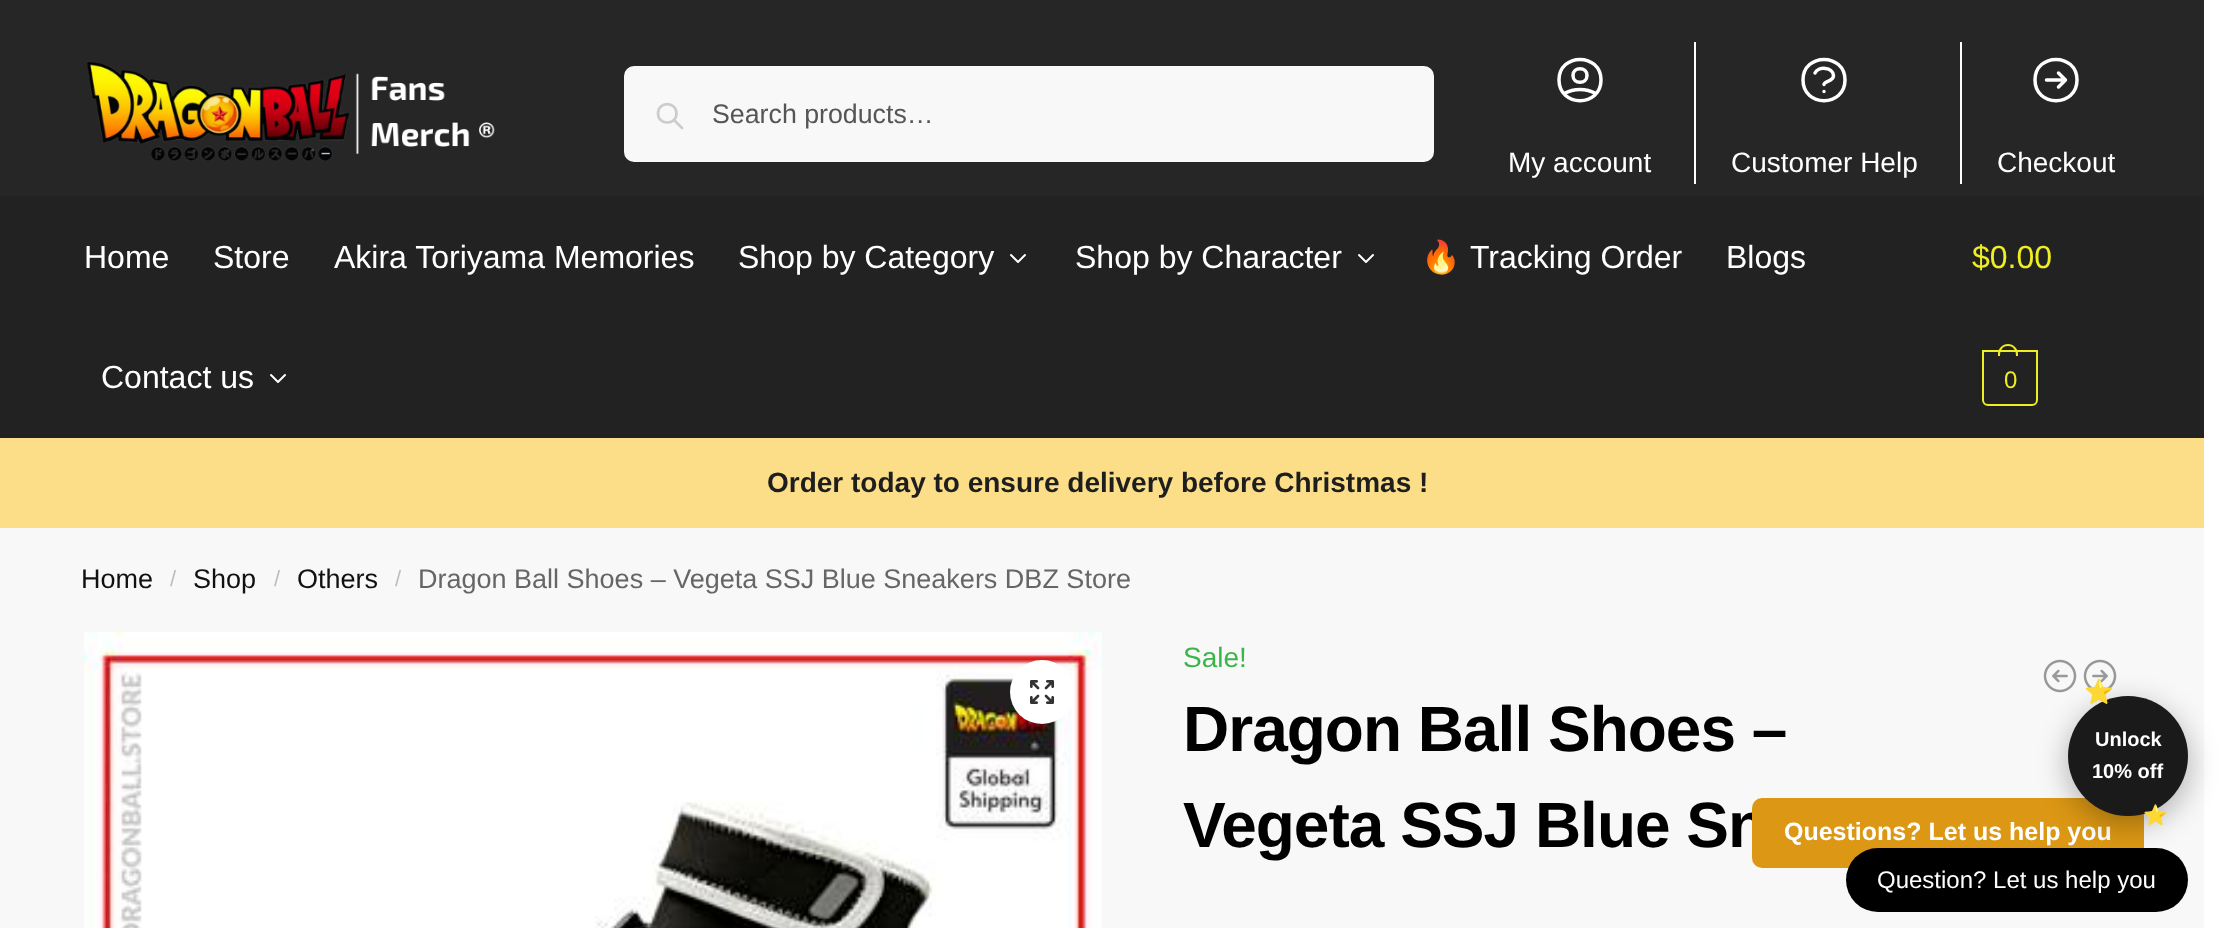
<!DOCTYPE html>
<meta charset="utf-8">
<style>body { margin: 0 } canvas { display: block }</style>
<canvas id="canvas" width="2233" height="928"></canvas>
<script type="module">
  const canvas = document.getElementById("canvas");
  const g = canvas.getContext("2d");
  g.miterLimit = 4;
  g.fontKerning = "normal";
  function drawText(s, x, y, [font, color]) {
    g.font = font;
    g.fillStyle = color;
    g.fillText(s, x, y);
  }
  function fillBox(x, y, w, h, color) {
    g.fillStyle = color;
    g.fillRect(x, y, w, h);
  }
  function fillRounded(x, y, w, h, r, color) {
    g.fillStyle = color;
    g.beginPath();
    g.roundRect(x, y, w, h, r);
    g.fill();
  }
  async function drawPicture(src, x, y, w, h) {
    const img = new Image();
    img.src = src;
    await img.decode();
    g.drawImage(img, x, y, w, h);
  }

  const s1 = ["26.75px Liberation Sans", "#555555"];
  const s2 = ["28px Liberation Sans", "#FFFFFF"];
  const s3 = ["32px Liberation Sans", "#FFFFFF"];
  const s4 = ["32px Noto Color Emoji", "#FFFFFF"];
  const s5 = ["32px Liberation Sans", "#EEEE22"];
  const s6 = ["24px Liberation Sans", "#EEEE22"];
  const s7 = ["bold 28px Liberation Sans", "#1E1E1E"];
  const s8 = ["27px Liberation Sans", "#111111"];
  const s9 = ["22px Liberation Sans", "#BEBEBE"];
  const s10 = ["27px Liberation Sans", "#666666"];
  const s11 = ["28px Liberation Sans", "#3BB54A"];
  const s12 = ["bold 64px Liberation Sans", "#000000"];
  const s13 = ["bold 25px Liberation Sans", "#FFFFFF"];
  const s14 = ["bold 24px Noto Color Emoji", "#FFD700"];
  const s15 = ["bold 20px Liberation Sans", "#FFFFFF"];
  const s16 = ["bold 20px Noto Color Emoji", "#FFD700"];
  const s17 = ["24px Liberation Sans", "#FFFFFF"];

  fillBox(0, 0, 2233, 928, "#FFFFFF");
  fillBox(0, 0, 2204, 196, "#262626");
  await drawPicture("pic1.png", 87, 61, 408, 101);
  g.fillStyle = "#F8F8F8";
  g.beginPath();
  g.roundRect(625, 67, 808, 94, 9);
  g.fill();
  g.strokeStyle = "#F8F8F8";
  g.lineWidth = 2;
  g.stroke();
  g.beginPath();
  g.moveTo(682, 128);
  g.lineTo(674, 120);
  g.moveTo(676.5, 113.5);
  g.bezierCurveTo(676.5, 125.5, 658, 125.5, 658, 113.5);
  g.bezierCurveTo(658, 101, 676.5, 101, 676.5, 113.5);
  g.closePath();
  g.strokeStyle = "#CCCCCC";
  g.lineWidth = 2.7;
  g.lineCap = "round";
  g.lineJoin = "round";
  g.stroke();
  drawText("Search products…", 712, 123, s1);
  g.beginPath();
  g.moveTo(1564, 93.5);
  g.bezierCurveTo(1574, 88, 1586, 88, 1596, 93.5);
  g.moveTo(1587, 75.5);
  g.bezierCurveTo(1587, 84.5, 1573, 84.5, 1573, 75.5);
  g.bezierCurveTo(1573, 66.5, 1587, 66.5, 1587, 75.5);
  g.closePath();
  g.moveTo(1601, 80);
  g.bezierCurveTo(1601, 107.5, 1559, 107.5, 1559, 80);
  g.bezierCurveTo(1559, 52.5, 1601, 52.5, 1601, 80);
  g.closePath();
  g.strokeStyle = "#FFFFFF";
  g.lineWidth = 3.5;
  g.stroke();
  drawText("My account", 1508, 172, s2);
  fillBox(1694, 42, 2, 142, "#FFFFFF");
  g.beginPath();
  g.moveTo(1815, 73);
  g.bezierCurveTo(1818.5, 66, 1833, 67, 1833.5, 75.5);
  g.bezierCurveTo(1833.5, 82, 1824, 80.5, 1824, 84.5);
  g.moveTo(1824, 91.5);
  g.lineTo(1824, 91.5);
  g.moveTo(1845, 80);
  g.bezierCurveTo(1845, 107.5, 1803, 107.5, 1803, 80);
  g.bezierCurveTo(1803, 52.5, 1845, 52.5, 1845, 80);
  g.closePath();
  g.stroke();
  drawText("Customer Help", 1731, 172, s2);
  fillBox(1960, 42, 2, 142, "#FFFFFF");
  g.beginPath();
  g.moveTo(2058.5, 73);
  g.lineTo(2065.5, 80);
  g.moveTo(2065.5, 80);
  g.lineTo(2058.5, 87);
  g.moveTo(2065.5, 80);
  g.lineTo(2046.5, 80);
  g.moveTo(2077, 80);
  g.bezierCurveTo(2077, 107.5, 2035, 107.5, 2035, 80);
  g.bezierCurveTo(2035, 52.5, 2077, 52.5, 2077, 80);
  g.closePath();
  g.stroke();
  drawText("Checkout", 1997, 172, s2);
  fillBox(0, 196, 2204, 242, "#222222");
  drawText("Home", 84, 268, s3);
  drawText("Store", 213, 268, s3);
  drawText("Akira Toriyama Memories", 334, 268, s3);
  drawText("Shop by Category", 738, 268, s3);
  g.beginPath();
  g.moveTo(1025, 255);
  g.lineTo(1018, 262);
  g.lineTo(1011, 255);
  g.lineWidth = 2;
  g.stroke();
  drawText("Shop by Character", 1075, 268, s3);
  g.beginPath();
  g.moveTo(1373, 255);
  g.lineTo(1366, 262);
  g.lineTo(1359, 255);
  g.stroke();
  drawText("🔥", 1421, 268, s4);
  drawText("Tracking Order", 1470, 268, s3);
  drawText("Blogs", 1726, 268, s3);
  drawText("Contact us", 101, 388, s3);
  g.beginPath();
  g.moveTo(285, 375);
  g.lineTo(278, 382);
  g.lineTo(271, 375);
  g.stroke();
  drawText("$0.00", 1972, 268, s5);
  g.beginPath();
  g.roundRect(1983, 351, 54, 54, [0, 0, 5, 5]);
  g.strokeStyle = "#EEEE22";
  g.lineJoin = "miter";
  g.stroke();
  g.beginPath();
  g.moveTo(2008, 344);
  g.bezierCurveTo(2013.5, 344, 2018, 348.5, 2018, 354);
  g.lineTo(2018, 356);
  g.lineTo(1998, 356);
  g.lineTo(1998, 354);
  g.bezierCurveTo(1998, 348.5, 2002.5, 344, 2008, 344);
  g.closePath();
  g.moveTo(2008, 346);
  g.bezierCurveTo(2014, 346, 2016, 351, 2016, 356);
  g.lineTo(2000, 356);
  g.bezierCurveTo(2000, 351, 2002, 346, 2008, 346);
  g.closePath();
  g.fill("evenodd");
  g.letterSpacing = "-1px";
  drawText("0", 2004, 388, s6);
  fillBox(0, 438, 2204, 90, "#FBDE87");
  g.letterSpacing = "0px";
  drawText("Order today to ensure delivery before Christmas !", 767, 492, s7);
  fillBox(0, 528, 2204, 400, "#F8F8F8");
  drawText("Home", 81, 588, s8);
  drawText("/", 170, 586, s9);
  drawText("Shop", 193, 588, s8);
  drawText("/", 274, 586, s9);
  drawText("Others", 297, 588, s8);
  drawText("/", 395, 586, s9);
  drawText("Dragon Ball Shoes – Vegeta SSJ Blue Sneakers DBZ Store", 418, 588, s10);
  await drawPicture("pic2.png", 84, 632, 1018, 296);
  g.fillStyle = "#FFFFFF";
  g.beginPath();
  g.arc(1042, 692, 32, 0, Math.PI * 2);
  g.fill();
  await drawPicture("pic3.png", 1030, 680, 24, 24);
  drawText("Sale!", 1183, 667, s11);
  await drawPicture("pic4.png", 2043, 659, 34, 34);
  await drawPicture("pic5.png", 2083, 659, 34, 34);
  g.letterSpacing = "-1px";
  drawText("Dragon Ball Shoes –", 1183, 751, s12);
  drawText("Vegeta SSJ Blue Sn", 1183, 847, s12);
  fillRounded(1752, 798, 392, 70, 10, "#DC9814");
  g.letterSpacing = "0px";
  drawText("Questions? Let us help you", 1784, 840, s13);
  fillRounded(1846, 848, 342, 64, 32, "#000000");
  g.fillStyle = "rgba(0, 0, 0, 0.3)";
  g.filter = "blur(15px)";
  g.beginPath();
  g.roundRect(2068, 704, 120, 120, 60);
  g.fill();
  g.filter = "none";
  g.fillStyle = "#1A1A1A";
  g.beginPath();
  g.arc(2128, 756, 60, 0, Math.PI * 2);
  g.fill();
  drawText("⭐", 2084, 700, s14);
  drawText("Unlock", 2095, 746, s15);
  drawText("10% off", 2092, 778, s15);
  drawText("⭐", 2143, 822, s16);
  drawText("Question? Let us help you", 1877, 888, s17);
</script>
